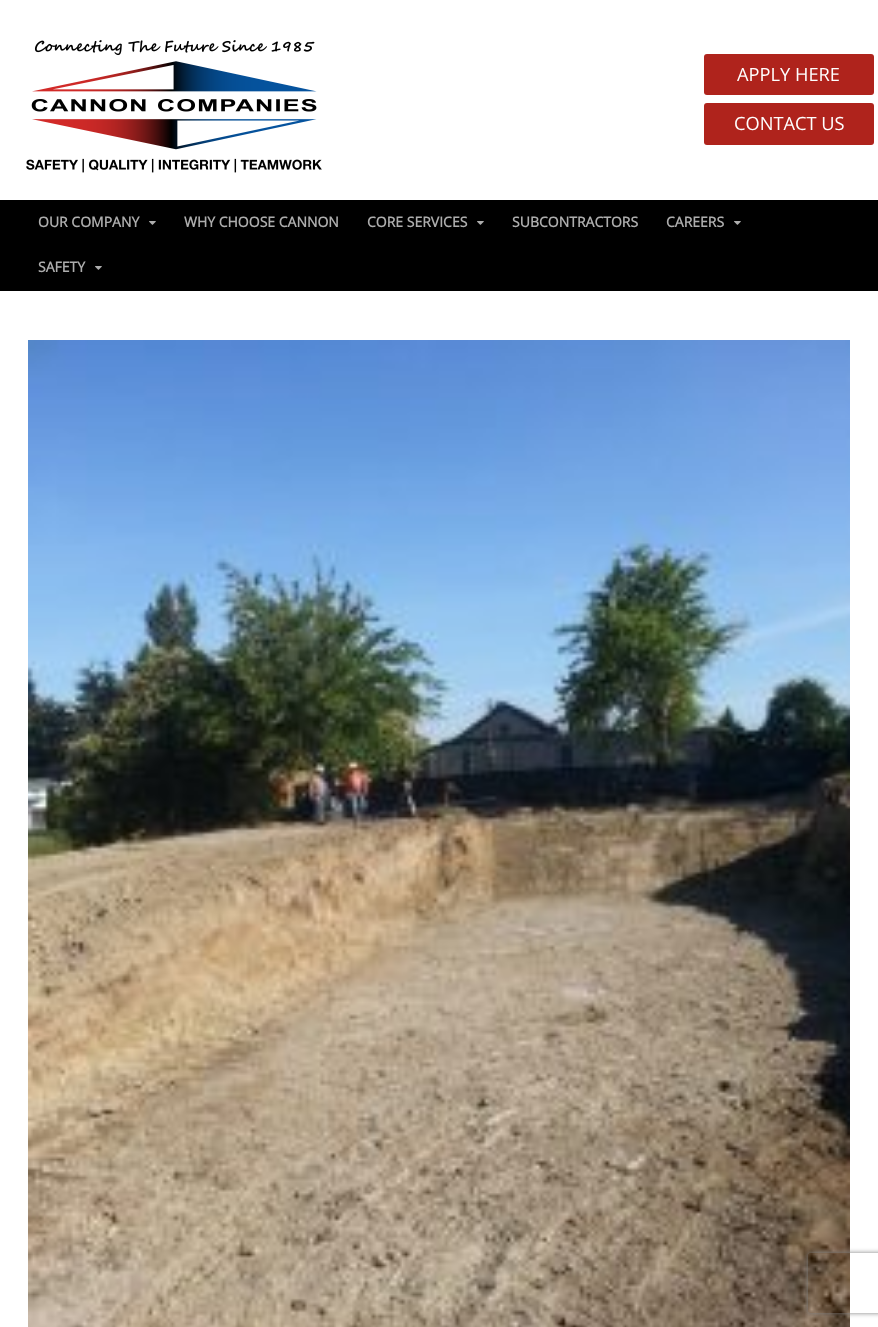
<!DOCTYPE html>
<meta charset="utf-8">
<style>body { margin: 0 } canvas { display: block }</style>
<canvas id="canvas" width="878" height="1327"></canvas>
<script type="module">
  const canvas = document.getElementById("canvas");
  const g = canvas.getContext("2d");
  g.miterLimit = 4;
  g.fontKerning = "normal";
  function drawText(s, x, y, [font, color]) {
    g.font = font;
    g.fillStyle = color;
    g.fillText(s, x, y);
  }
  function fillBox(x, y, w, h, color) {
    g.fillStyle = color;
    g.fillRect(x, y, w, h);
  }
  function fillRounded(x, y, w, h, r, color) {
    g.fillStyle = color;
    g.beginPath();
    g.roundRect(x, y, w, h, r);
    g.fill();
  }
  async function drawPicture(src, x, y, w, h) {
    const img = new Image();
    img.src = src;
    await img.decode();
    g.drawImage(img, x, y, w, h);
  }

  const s1 = ["18.25px Open Sans", "#FFFFFF"];
  const s2 = ["bold 14px Open Sans", "#ADADAD"];

  fillBox(0, 0, 878, 1327, "#FFFFFF");
  await drawPicture("pic1.png", 26, 40, 296, 133);
  fillRounded(704, 54, 170, 41, 3, "#AF231C");
  drawText("APPLY HERE", 737, 81, s1);
  fillRounded(704, 103, 170, 42, 3, "#AF231C");
  drawText("CONTACT US", 734, 130, s1);
  fillBox(0, 200, 878, 91, "#000000");
  drawText("OUR COMPANY", 38, 227, s2);
  await drawPicture("pic2.png", 149, 221, 7, 4);
  drawText("WHY CHOOSE CANNON", 184, 227, s2);
  drawText("CORE SERVICES", 367, 227, s2);
  await drawPicture("pic2.png", 477, 221, 7, 4);
  drawText("SUBCONTRACTORS", 512, 227, s2);
  drawText("CAREERS", 666, 227, s2);
  await drawPicture("pic2.png", 734, 221, 7, 4);
  drawText("SAFETY", 38, 272, s2);
  await drawPicture("pic2.png", 95, 266, 7, 4);
  await drawPicture("pic3.png", 28, 340, 822, 987);
  g.save();
  g.beginPath();
  g.moveTo(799, 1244);
  g.lineTo(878, 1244);
  g.lineTo(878, 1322);
  g.lineTo(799, 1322);
  g.closePath();
  g.moveTo(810, 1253);
  g.lineTo(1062, 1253);
  g.bezierCurveTo(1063, 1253, 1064, 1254, 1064, 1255);
  g.lineTo(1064, 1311);
  g.bezierCurveTo(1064, 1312, 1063, 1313, 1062, 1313);
  g.lineTo(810, 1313);
  g.bezierCurveTo(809, 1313, 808, 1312, 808, 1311);
  g.lineTo(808, 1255);
  g.bezierCurveTo(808, 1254, 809, 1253, 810, 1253);
  g.closePath();
  g.clip("evenodd");
  g.fillStyle = "#808080";
  g.filter = "blur(2.5px)";
  g.beginPath();
  g.roundRect(808, 1253, 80, 60, 2);
  g.fill();
  g.filter = "none";
  g.restore();
</script>
